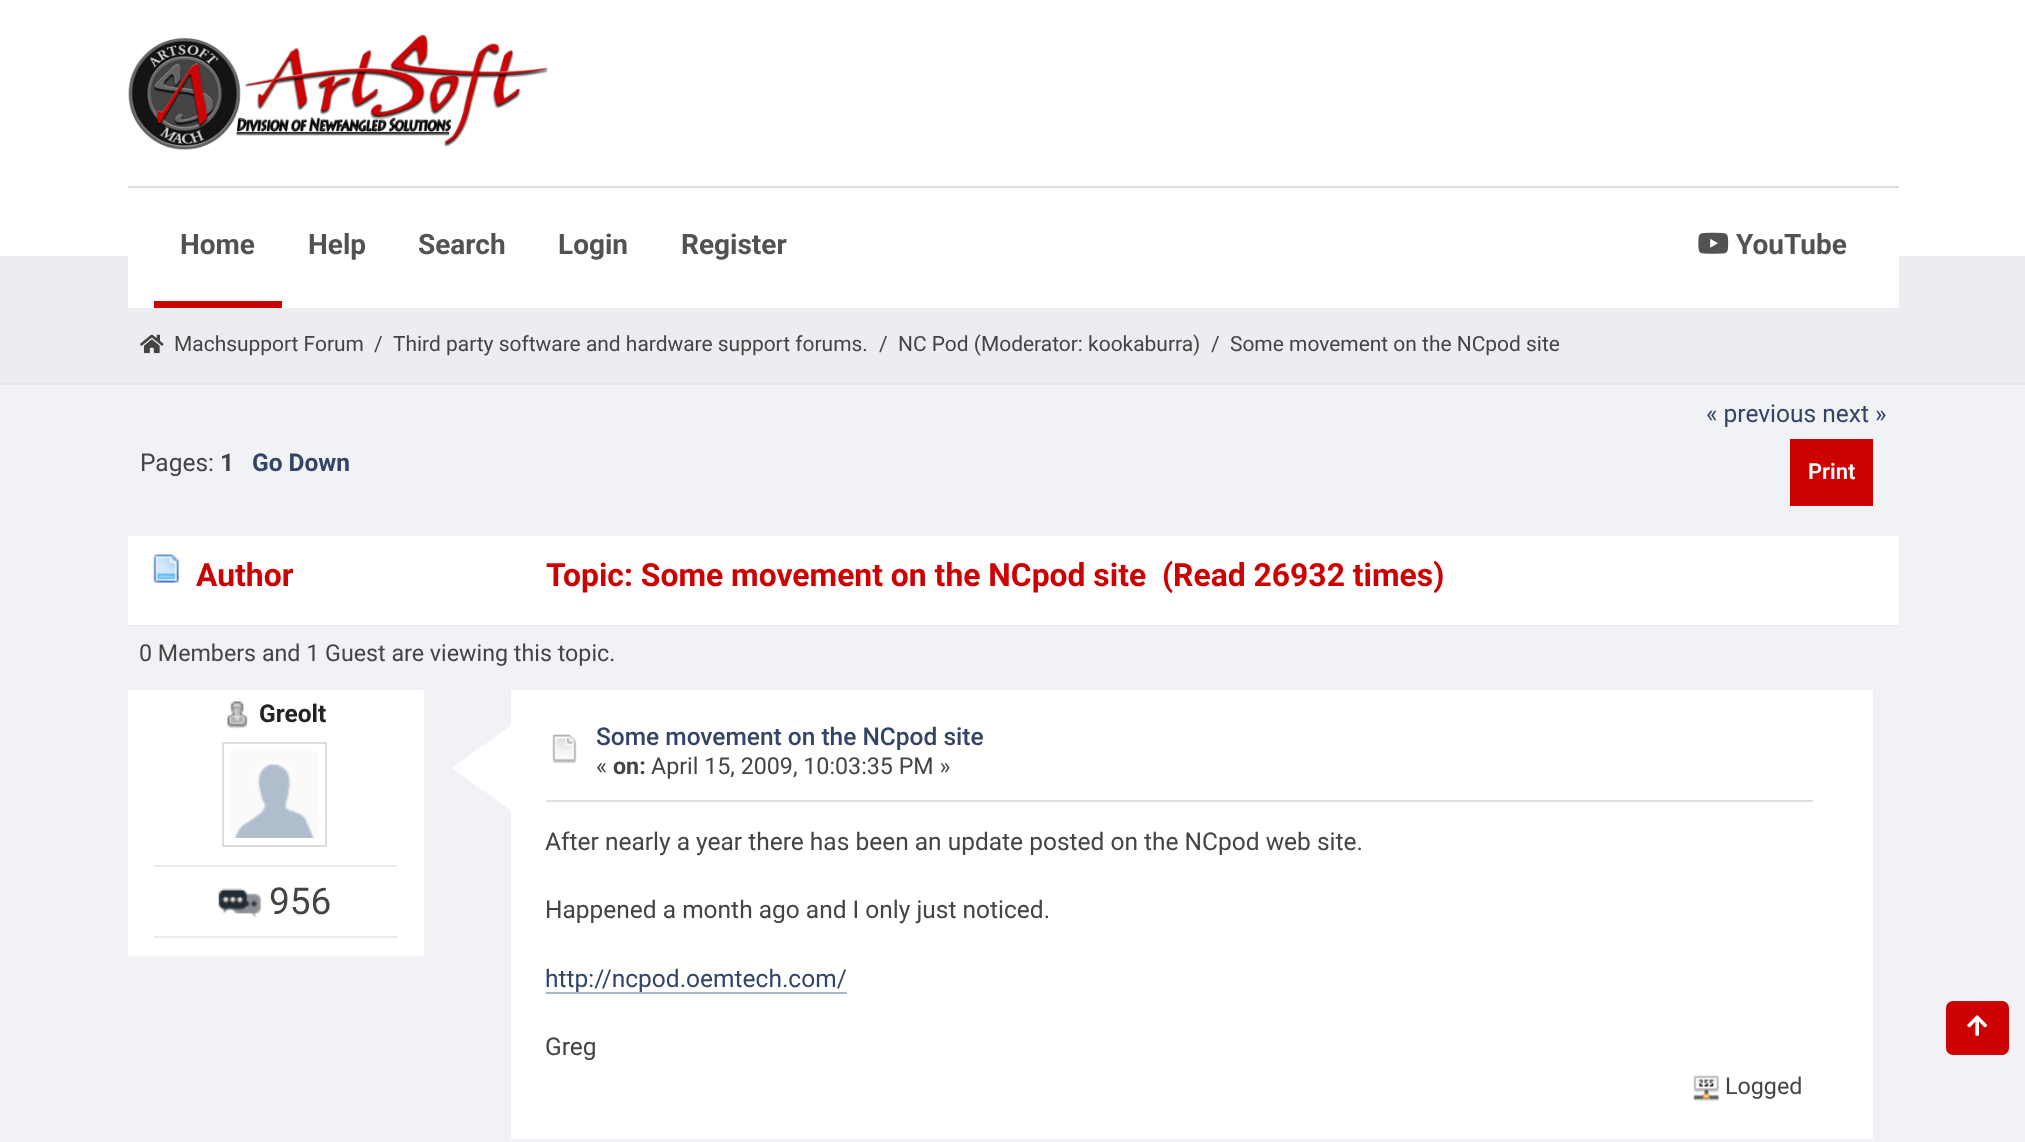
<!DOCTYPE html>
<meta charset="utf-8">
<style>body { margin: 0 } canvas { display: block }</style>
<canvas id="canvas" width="2025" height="1142"></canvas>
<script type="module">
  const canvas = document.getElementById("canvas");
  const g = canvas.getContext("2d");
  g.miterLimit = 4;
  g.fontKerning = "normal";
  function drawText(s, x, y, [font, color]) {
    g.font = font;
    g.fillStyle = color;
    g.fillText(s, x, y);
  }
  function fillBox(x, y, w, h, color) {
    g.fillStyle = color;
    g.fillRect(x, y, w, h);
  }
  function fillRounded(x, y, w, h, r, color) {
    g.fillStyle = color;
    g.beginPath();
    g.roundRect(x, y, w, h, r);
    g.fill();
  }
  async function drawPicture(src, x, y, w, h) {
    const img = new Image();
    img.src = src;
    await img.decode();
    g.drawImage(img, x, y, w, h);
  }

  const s1 = ["bold 28px Roboto", "#525252"];
  const s2 = ["20.95px Roboto", "#444444"];
  const s3 = ["24.5px Roboto", "#334466"];
  const s4 = ["24.5px Roboto", "#444444"];
  const s5 = ["bold 24.5px Roboto", "#444444"];
  const s6 = ["bold 24.5px Roboto", "#334466"];
  const s7 = ["600 22px Roboto", "#FFFFFF"];
  const s8 = ["bold 31.85px Roboto", "#CD0002"];
  const s9 = ["23.25px Roboto", "#444444"];
  const s10 = ["bold 24.5px Roboto", "#222222"];
  const s11 = ["37px Roboto", "#444444"];
  const s12 = ["500 24.5px Roboto", "#334466"];
  const s13 = ["bold 23.25px Roboto", "#444444"];

  fillBox(0, 0, 2025, 1142, "#F0F2F6");
  fillBox(0, 0, 2025, 256, "#FFFFFF");
  await drawPicture("pic1.png", 128, 34, 420, 116);
  fillBox(0, 256, 2025, 127, "#EBEDF0");
  fillBox(128, 256, 1771, 52, "#FFFFFF");
  fillBox(128, 186, 1771, 2, "#DEDEDE");
  fillBox(154, 301, 128, 7, "#CD0002");
  drawText("Home", 180, 254, s1);
  drawText("Help", 308, 254, s1);
  drawText("Search", 418, 254, s1);
  drawText("Login", 558, 254, s1);
  drawText("Register", 681, 254, s1);
  await drawPicture("pic2.png", 1698, 232, 31, 22);
  drawText("YouTube", 1736, 254, s1);
  fillBox(0, 383, 2025, 2, "#E4E6E9");
  await drawPicture("pic3.png", 140, 334, 24, 20);
  drawText("Machsupport Forum", 174, 351, s2);
  drawText("/", 374, 351, s2);
  drawText("Third party software and hardware support forums.", 393, 351, s2);
  drawText("/", 879, 351, s2);
  drawText("NC Pod (Moderator: kookaburra)", 898, 351, s2);
  drawText("/", 1211, 351, s2);
  drawText("Some movement on the NCpod site", 1230, 351, s2);
  drawText("« previous next »", 1706, 422, s3);
  drawText("Pages:", 140, 471, s4);
  drawText("1", 220, 471, s5);
  drawText("Go Down", 252, 471, s6);
  fillBox(1790, 439, 83, 67, "#CD0002");
  drawText("Print", 1808, 479, s7);
  fillBox(128, 536, 1771, 89, "#FFFFFF");
  fillBox(128, 625, 1771, 2, "#EFEFEF");
  await drawPicture("pic4.png", 153, 554, 26, 29);
  drawText("Author", 196, 586, s8);
  drawText("Topic: Some movement on the NCpod site  (Read 26932 times)", 546, 586, s8);
  drawText("0 Members and 1 Guest are viewing this topic.", 139, 661, s9);
  fillBox(128, 690, 296, 266, "#FFFFFF");
  await drawPicture("pic5.png", 227, 701, 21, 28);
  drawText("Greolt", 259, 722, s10);
  g.strokeStyle = "#DDDDDD";
  g.lineWidth = 2;
  g.strokeRect(223, 743, 103, 103);
  await drawPicture("pic6.png", 231, 751, 87, 87);
  fillBox(154, 865, 243, 2, "#EBEBEB");
  fillBox(154, 936, 243, 2, "#EBEBEB");
  await drawPicture("pic7.png", 218, 888, 43, 30);
  drawText("956", 269, 914, s11);
  fillBox(511, 690, 1362, 449, "#FFFFFF");
  g.beginPath();
  g.moveTo(513, 724);
  g.lineTo(513, 812);
  g.lineTo(452, 768);
  g.closePath();
  g.fill();
  await drawPicture("pic8.png", 552, 734, 25, 29);
  drawText("Some movement on the NCpod site", 596, 745, s12);
  drawText("«", 596, 774, s9);
  drawText("on:", 613, 774, s13);
  drawText("April 15, 2009, 10:03:35 PM »", 651, 774, s9);
  fillBox(546, 800, 1267, 2, "#DEDEDE");
  drawText("After nearly a year there has been an update posted on the NCpod web site.", 545, 850, s4);
  drawText("Happened a month ago and I only just noticed.", 545, 918, s4);
  drawText("http://ncpod.oemtech.com/", 545, 987, s3);
  fillBox(546, 992, 301, 2, "#A8B6CF");
  drawText("Greg", 545, 1055, s4);
  await drawPicture("pic9.png", 1693, 1075, 26, 26);
  drawText("Logged", 1725, 1094, s9);
  fillRounded(1946, 1001, 63, 54, 7, "#CD0002");
  await drawPicture("pic10.png", 1967, 1015, 21, 21);
</script>
